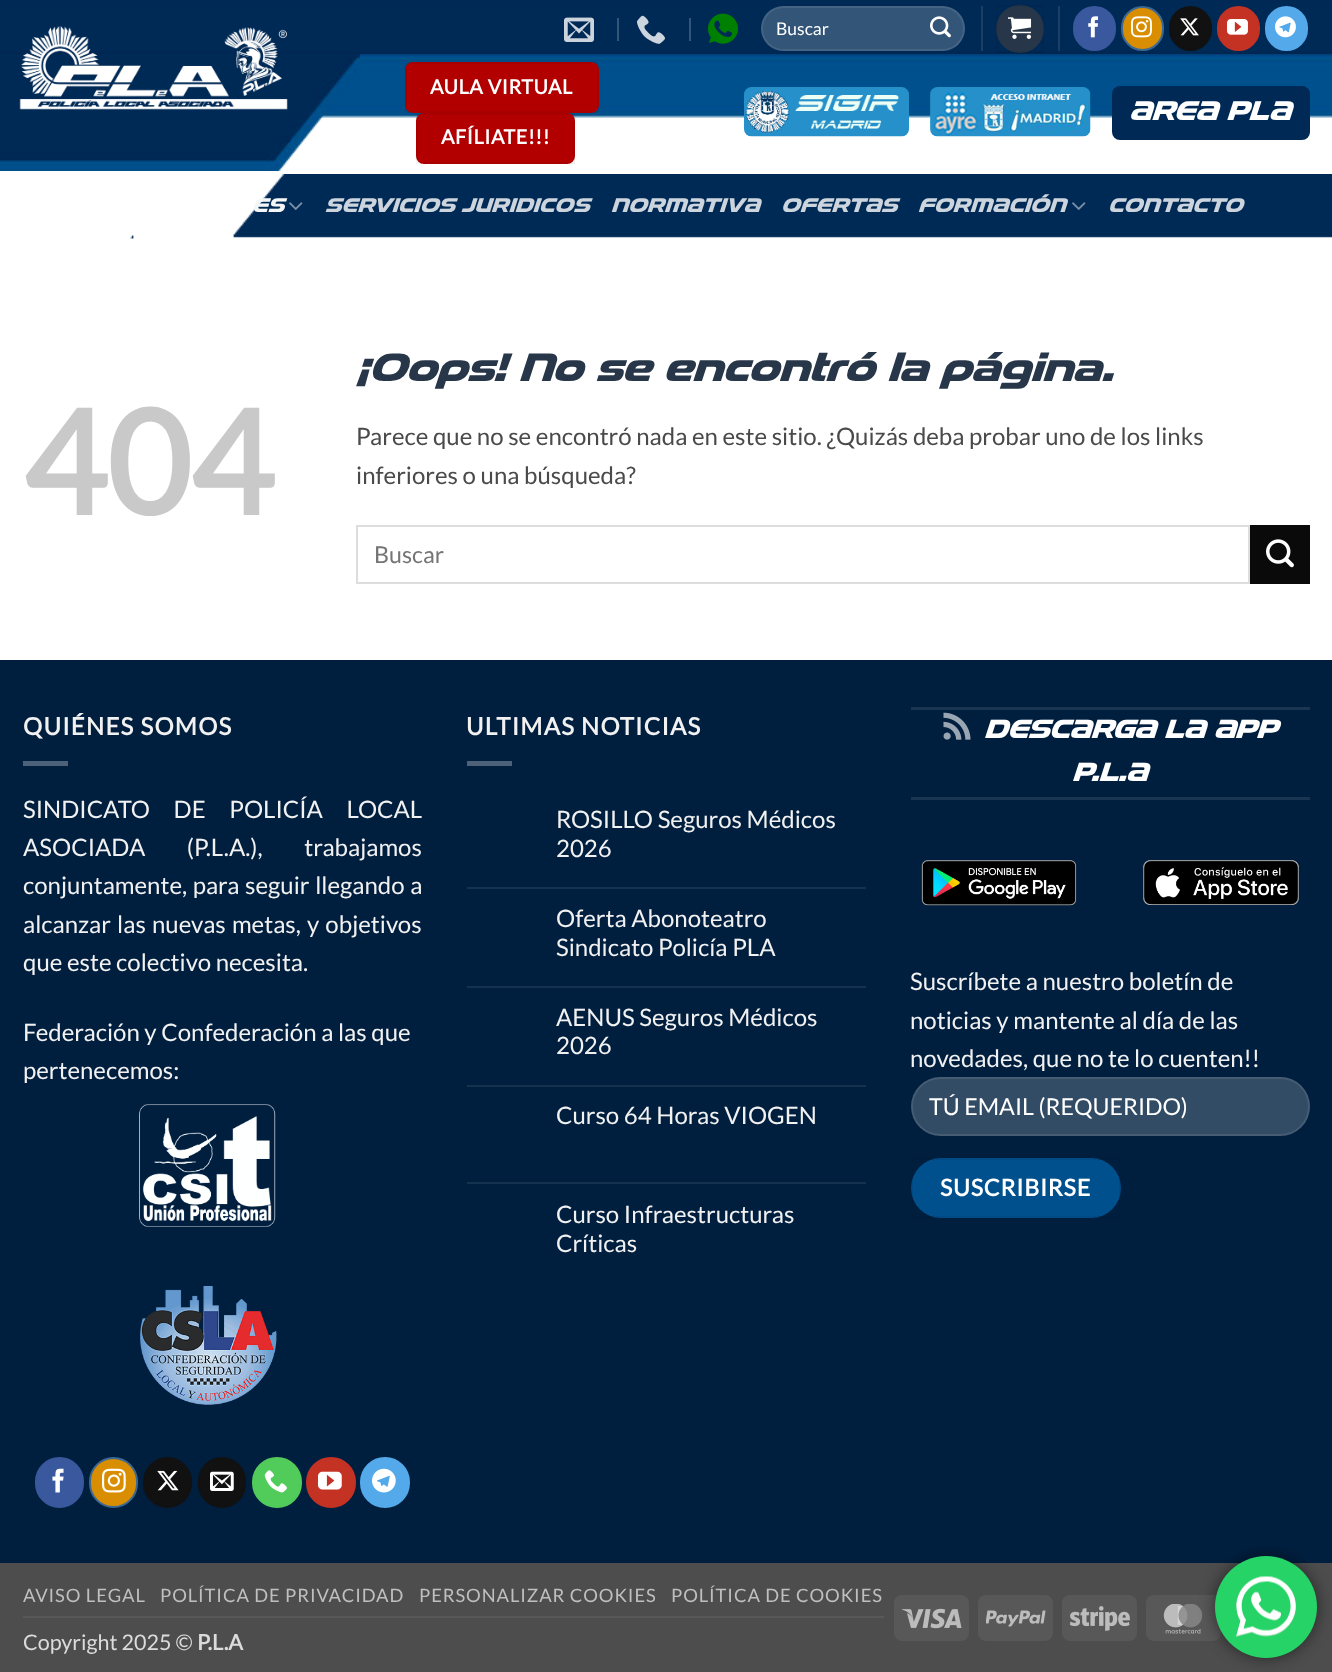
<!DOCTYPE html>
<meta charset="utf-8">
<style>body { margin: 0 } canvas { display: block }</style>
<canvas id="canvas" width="1332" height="1672"></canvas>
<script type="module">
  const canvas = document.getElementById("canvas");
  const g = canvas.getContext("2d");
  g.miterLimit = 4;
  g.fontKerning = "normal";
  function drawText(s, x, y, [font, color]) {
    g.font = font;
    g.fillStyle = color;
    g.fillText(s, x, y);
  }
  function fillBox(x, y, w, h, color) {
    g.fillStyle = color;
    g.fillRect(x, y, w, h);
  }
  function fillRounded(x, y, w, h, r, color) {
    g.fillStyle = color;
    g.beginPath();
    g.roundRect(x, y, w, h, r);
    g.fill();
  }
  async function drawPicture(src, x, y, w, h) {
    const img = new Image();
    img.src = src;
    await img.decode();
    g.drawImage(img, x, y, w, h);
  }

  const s1 = ["17.5px Lato", "#FFFFFF"];
  const s2 = ["bold 19.75px Lato", "#FFFFFF"];
  const s3 = ["italic bold 27.75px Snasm", "#FFFFFF"];
  const s4 = ["italic bold 20.25px Snasm", "#F4F6F8"];
  const s5 = ["italic bold 20.25px Snasm", "#CCD4DD"];
  const s6 = ["bold 144px Lato", "#C9C9C9"];
  const s7 = ["italic bold 40.75px Snasm", "#273648"];
  const s8 = ["24px Lato", "#4A4A4A"];
  const s9 = ["23.25px Lato", "#757575"];
  const s10 = ["bold 24px Lato", "#F1F1F1"];
  const s11 = ["24px Lato", "#F1F1F1"];
  const s12 = ["italic bold 27px Snasm", "#FFFFFF"];
  const s13 = ["23.25px Lato", "#FFFFFF"];
  const s14 = ["bold 23.25px Lato", "#FFFFFF"];
  const s15 = ["18.4px Lato", "#BFBFBF"];
  const s16 = ["21.5px Lato", "#DBDBDB"];
  const s17 = ["bold 21.5px Lato", "#DBDBDB"];

  fillBox(0, 0, 1332, 1672, "#FFFFFF");
  await drawPicture("pic1.png", 0, 0, 1332, 54);
  await drawPicture("pic2.png", 564, 17, 30, 25);
  fillBox(617, 18, 2, 23, "#335578");
  await drawPicture("pic3.png", 637, 15, 28, 29);
  fillBox(689, 18, 2, 23, "#335578");
  await drawPicture("pic4.png", 708, 13, 30, 31);
  fillRounded(761, 6, 204, 45, 22.5, "#335578");
  g.beginPath();
  g.roundRect(762, 7, 202, 43, 21.5);
  g.strokeStyle = "rgba(255, 255, 255, 0.09)";
  g.lineWidth = 2;
  g.stroke();
  drawText("Buscar", 776, 35, s1);
  await drawPicture("pic5.png", 930, 16, 21, 22);
  fillBox(981, 6, 2, 45, "#1A3F67");
  g.fillStyle = "#273648";
  g.beginPath();
  g.arc(1020, 29, 24, 0, Math.PI * 2);
  g.fill();
  g.strokeStyle = "rgba(0, 0, 0, 0.05)";
  g.strokeRect(997, 6, 46, 46);
  await drawPicture("pic6.png", 1008, 17, 24, 22);
  fillBox(1058, 6, 2, 45, "#1A3F67");
  g.fillStyle = "#3A589D";
  g.beginPath();
  g.roundRect(1074, 7, 41, 43, 20.5);
  g.fill();
  g.strokeStyle = "#3A589D";
  g.stroke();
  await drawPicture("pic7.png", 1088, 16, 10, 22);
  g.fillStyle = "#D88E00";
  g.beginPath();
  g.roundRect(1122, 7, 41, 43, 20.5);
  g.fill();
  g.strokeStyle = "#3B6994";
  g.stroke();
  await drawPicture("pic8.png", 1131, 16, 21, 22);
  g.fillStyle = "#111111";
  g.beginPath();
  g.roundRect(1170, 7, 41, 43, 20.5);
  g.fill();
  g.strokeStyle = "#111111";
  g.stroke();
  await drawPicture("pic9.png", 1180, 18, 19, 18);
  g.fillStyle = "#C33223";
  g.beginPath();
  g.roundRect(1218, 7, 41, 43, 20.5);
  g.fill();
  g.strokeStyle = "#C33223";
  g.stroke();
  await drawPicture("pic10.png", 1227, 19, 21, 16);
  g.fillStyle = "#54A9EA";
  g.beginPath();
  g.roundRect(1266, 7, 41, 43, 20.5);
  g.fill();
  g.strokeStyle = "#54A9EA";
  g.stroke();
  await drawPicture("pic11.png", 1275, 16, 21, 22);
  await drawPicture("pic12.png", 319, 54, 1013, 64);
  await drawPicture("pic13.png", 0, 54, 360, 117);
  await drawPicture("pic14.png", 19, 26, 269, 84);
  fillRounded(405, 62, 194, 51, 8, "#B20000");
  g.strokeStyle = "rgba(0, 0, 0, 0.05)";
  g.strokeRect(406, 63, 192, 49);
  g.letterSpacing = "0.6px";
  drawText("AULA VIRTUAL", 430, 94, s2);
  fillRounded(416, 113, 159, 51, 8, "#B20000");
  g.strokeRect(417, 114, 157, 49);
  drawText("AFÍLIATE!!!", 441, 144, s2);
  await drawPicture("pic15.png", 744, 87, 165, 50);
  await drawPicture("pic16.png", 930, 87, 161, 50);
  fillRounded(1112, 86, 198, 54, 8, "#002A55");
  g.letterSpacing = "0.25px";
  drawText("AREA PLA", 1129, 120, s3);
  await drawPicture("pic17.png", 130, 174, 1202, 65);
  g.letterSpacing = "0.4px";
  drawText("ES", 252, 212, s4);
  await drawPicture("pic18.png", 289, 202, 14, 8);
  drawText("SERVICIOS JURIDICOS", 325, 212, s5);
  drawText("NORMATIVA", 611, 212, s5);
  drawText("OFERTAS", 781, 212, s5);
  drawText("FORMACIÓN", 918, 212, s5);
  await drawPicture("pic18.png", 1072, 202, 14, 8);
  drawText("CONTACTO", 1108, 212, s5);
  g.letterSpacing = "0px";
  drawText("404", 23, 515, s6);
  drawText("¡Oops! No se encontró la página.", 356, 381, s7);
  drawText("Parece que no se encontró nada en este sitio. ¿Quizás deba probar uno de los links", 356, 445, s8);
  drawText("inferiores o una búsqueda?", 356, 484, s8);
  g.strokeStyle = "#DDDDDD";
  g.strokeRect(357, 526, 892, 57);
  drawText("Buscar", 374, 563, s9);
  fillBox(1250, 525, 60, 59, "#0A0A0A");
  await drawPicture("pic19.png", 1266, 539, 28, 29);
  fillBox(0, 662, 1332, 901, "#001F3F");
  fillBox(0, 660, 1332, 2, "#001D3C");
  g.letterSpacing = "1.25px";
  drawText("QUIÉNES SOMOS", 23, 735, s10);
  fillBox(23, 761, 45, 5, "#4D6279");
  g.letterSpacing = "0px";
  g.wordSpacing = "19px";
  drawText("SINDICATO DE POLICÍA LOCAL", 23, 818, s11);
  g.wordSpacing = "37px";
  drawText("ASOCIADA (P.L.A.), trabajamos", 23, 856, s11);
  g.wordSpacing = "1px";
  drawText("conjuntamente, para seguir llegando a", 23, 894, s11);
  g.wordSpacing = "1.5px";
  drawText("alcanzar las nuevas metas, y objetivos", 23, 933, s11);
  g.wordSpacing = "0px";
  drawText("que este colectivo necesita.", 23, 971, s11);
  drawText("Federación y Confederación a las que", 23, 1041, s11);
  drawText("pertenecemos:", 23, 1079, s11);
  await drawPicture("pic20.png", 139, 1104, 137, 123);
  await drawPicture("pic21.png", 140, 1286, 137, 119);
  g.fillStyle = "#3A589D";
  g.beginPath();
  g.roundRect(36, 1458, 47, 49, 23.5);
  g.fill();
  g.strokeStyle = "#3A589D";
  g.stroke();
  await drawPicture("pic22.png", 52, 1468, 12, 25);
  g.fillStyle = "#D88E00";
  g.beginPath();
  g.roundRect(90, 1458, 47, 49, 23.5);
  g.fill();
  g.strokeStyle = "#3B6994";
  g.stroke();
  await drawPicture("pic23.png", 102, 1468, 24, 25);
  g.fillStyle = "#111111";
  g.beginPath();
  g.roundRect(144, 1458, 47, 49, 23.5);
  g.fill();
  g.strokeStyle = "#111111";
  g.stroke();
  await drawPicture("pic24.png", 157, 1470, 22, 21);
  g.beginPath();
  g.roundRect(199, 1458, 46, 49, 23);
  g.fill();
  g.stroke();
  await drawPicture("pic25.png", 210, 1471, 24, 20);
  g.fillStyle = "#51CB5A";
  g.beginPath();
  g.roundRect(253, 1458, 48, 49, 24);
  g.fill();
  g.strokeStyle = "#51CB5A";
  g.stroke();
  await drawPicture("pic26.png", 264, 1470, 23, 23);
  g.fillStyle = "#C33223";
  g.beginPath();
  g.roundRect(307, 1458, 48, 49, 24);
  g.fill();
  g.strokeStyle = "#C33223";
  g.stroke();
  await drawPicture("pic27.png", 318, 1471, 24, 19);
  g.fillStyle = "#54A9EA";
  g.beginPath();
  g.roundRect(361, 1458, 48, 49, 24);
  g.fill();
  g.strokeStyle = "#54A9EA";
  g.stroke();
  await drawPicture("pic28.png", 372, 1468, 24, 25);
  g.letterSpacing = "1.25px";
  drawText("ULTIMAS NOTICIAS", 466, 735, s10);
  fillBox(467, 761, 45, 5, "#4D6279");
  g.letterSpacing = "0px";
  drawText("ROSILLO Seguros Médicos", 556, 828, s11);
  drawText("2026", 556, 857, s11);
  fillBox(467, 887, 399, 2, "#14314E");
  drawText("Oferta Abonoteatro", 556, 927, s11);
  drawText("Sindicato Policía PLA", 556, 956, s11);
  fillBox(467, 986, 399, 2, "#14314E");
  drawText("AENUS Seguros Médicos", 556, 1026, s11);
  drawText("2026", 556, 1054, s11);
  fillBox(467, 1085, 399, 2, "#14314E");
  drawText("Curso 64 Horas VIOGEN", 556, 1124, s11);
  fillBox(467, 1182, 399, 2, "#14314E");
  drawText("Curso Infraestructuras", 556, 1223, s11);
  drawText("Críticas", 556, 1252, s11);
  fillBox(911, 707, 399, 3, "#1A3552");
  await drawPicture("pic29.png", 943, 712, 28, 28);
  drawText("DESCARGA LA APP", 984, 738, s12);
  drawText("P.L.A", 1072, 781, s12);
  fillBox(911, 797, 399, 3, "#1A3552");
  await drawPicture("pic30.png", 921, 860, 156, 46);
  await drawPicture("pic31.png", 1143, 860, 156, 45);
  drawText("Suscríbete a nuestro boletín de", 910, 990, s11);
  drawText("noticias y mantente al día de las", 910, 1029, s11);
  drawText("novedades, que no te lo cuenten!!", 910, 1067, s11);
  fillRounded(911, 1077, 399, 59, 29.5, "#334C65");
  g.beginPath();
  g.roundRect(912, 1078, 397, 57, 28.5);
  g.strokeStyle = "rgba(255, 255, 255, 0.09)";
  g.stroke();
  drawText("TÚ EMAIL (REQUERIDO)", 929, 1115, s13);
  fillRounded(911, 1158, 210, 60, 30, "#00508E");
  g.strokeStyle = "rgba(0, 0, 0, 0.05)";
  g.strokeRect(912, 1159, 208, 58);
  g.letterSpacing = "0.75px";
  drawText("SUSCRIBIRSE", 940, 1196, s14);
  fillBox(0, 1563, 1332, 109, "#4D4D4D");
  fillBox(23, 1616, 861, 2, "#585858");
  g.letterSpacing = "0.9px";
  drawText("AVISO LEGAL", 23, 1602, s15);
  drawText("POLÍTICA DE PRIVACIDAD", 160, 1602, s15);
  drawText("PERSONALIZAR COOKIES", 419, 1602, s15);
  drawText("POLÍTICA DE COOKIES", 671, 1602, s15);
  g.letterSpacing = "0px";
  drawText("Copyright 2025 ©", 23, 1650, s16);
  drawText("P.L.A", 197, 1650, s17);
  fillRounded(894, 1595, 75, 46, 8, "#585858");
  await drawPicture("pic32.png", 902, 1608, 60, 21);
  fillRounded(978, 1595, 75, 46, 8, "#585858");
  await drawPicture("pic33.png", 986, 1610, 60, 17);
  fillRounded(1062, 1595, 75, 46, 8, "#585858");
  await drawPicture("pic34.png", 1070, 1606, 60, 25);
  fillRounded(1146, 1595, 75, 46, 8, "#585858");
  await drawPicture("pic35.png", 1163, 1604, 40, 30);
  g.fillStyle = "rgba(0, 0, 0, 0.5)";
  g.filter = "blur(8px)";
  g.beginPath();
  g.roundRect(1215, 1556, 102, 102, 51);
  g.fill();
  g.filter = "none";
  g.fillStyle = "#25D366";
  g.beginPath();
  g.arc(1266, 1607, 51, 0, Math.PI * 2);
  g.fill();
  await drawPicture("pic36.png", 1236, 1576, 60, 61);
</script>
